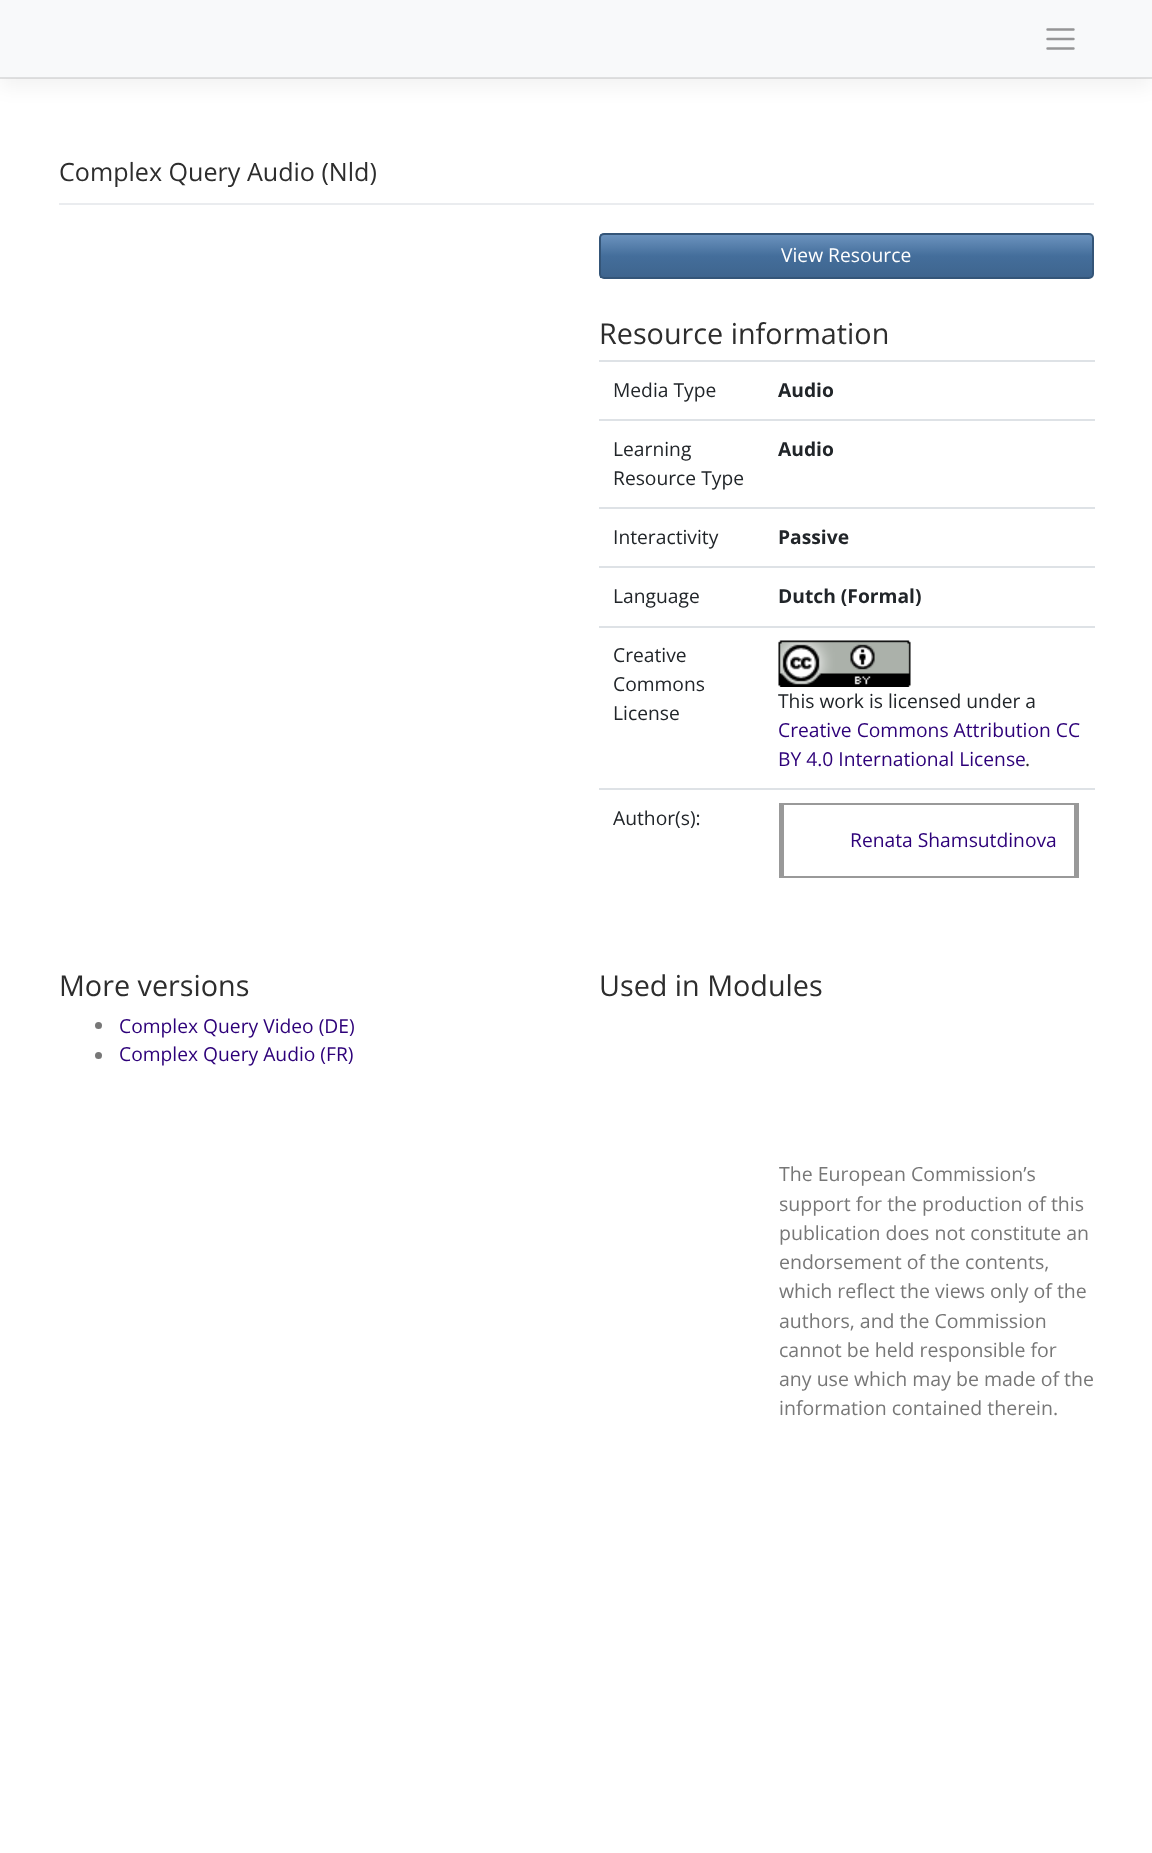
<!DOCTYPE html>
<meta charset="utf-8">
<style>body { margin: 0 } canvas { display: block }</style>
<canvas id="canvas" width="1152" height="1853"></canvas>
<script type="module">
  const canvas = document.getElementById("canvas");
  const g = canvas.getContext("2d");
  g.miterLimit = 4;
  g.fontKerning = "normal";
  function drawText(s, x, y, [font, color]) {
    g.font = font;
    g.fillStyle = color;
    g.fillText(s, x, y);
  }
  function fillBox(x, y, w, h, color) {
    g.fillStyle = color;
    g.fillRect(x, y, w, h);
  }
  async function drawPicture(src, x, y, w, h) {
    const img = new Image();
    img.src = src;
    await img.decode();
    g.drawImage(img, x, y, w, h);
  }
  let gradient;

  const s1 = ["25.1px Open Sans", "#2D2D2D"];
  const s2 = ["19.25px Open Sans", "#FFFFFF"];
  const s3 = ["28.75px Open Sans", "#2D2D2D"];
  const s4 = ["19.25px Open Sans", "#212529"];
  const s5 = ["bold 19.25px Open Sans", "#212529"];
  const s6 = ["19.25px Open Sans", "#2D0079"];
  const s7 = ["19.5px Open Sans", "#777777"];

  fillBox(0, 0, 1152, 1853, "#FFFFFF");
  g.fillStyle = "rgba(0, 0, 0, 0.05)";
  g.filter = "blur(9.5px)";
  g.beginPath();
  g.rect(0, 9, 1152, 78);
  g.fill();
  g.filter = "none";
  fillBox(0, 0, 1152, 78, "#F8F9FA");
  fillBox(0, 77, 1152, 2, "rgba(0, 0, 0, 0.1)");
  g.beginPath();
  g.moveTo(1047.5, 29.5);
  g.lineTo(1073.5, 29.5);
  g.moveTo(1047.5, 39);
  g.lineTo(1073.5, 39);
  g.moveTo(1047.5, 48.5);
  g.lineTo(1073.5, 48.5);
  g.strokeStyle = "#959596";
  g.lineWidth = 2.4;
  g.lineCap = "round";
  g.stroke();
  fillBox(59, 203, 1035, 2, "#EAECEF");
  drawText("Complex Query Audio (Nld)", 59, 181, s1);
  gradient = g.createLinearGradient(846, 234, 846, 278);
  gradient.addColorStop(0, "#6D94BF");
  gradient.addColorStop(0.5, "#446E9B");
  gradient.addColorStop(1, "#3E648D");
  g.fillStyle = gradient;
  g.fillRect(600, 234, 492, 44);
  g.beginPath();
  g.roundRect(600, 234, 493, 44, 4);
  g.strokeStyle = "#345578";
  g.lineWidth = 2;
  g.stroke();
  drawText("View Resource", 781, 262, s2);
  drawText("Resource information", 599, 344, s3);
  drawText("Media Type", 613, 397, s4);
  fillBox(599, 360, 496, 2, "#DEE2E6");
  drawText("Audio", 778, 397, s5);
  drawText("Learning", 613, 456, s4);
  drawText("Resource Type", 613, 485, s4);
  fillBox(599, 419, 496, 2, "#DEE2E6");
  drawText("Audio", 778, 456, s5);
  drawText("Interactivity", 613, 544, s4);
  fillBox(599, 507, 496, 2, "#DEE2E6");
  drawText("Passive", 778, 544, s5);
  drawText("Language", 613, 603, s4);
  fillBox(599, 566, 496, 2, "#DEE2E6");
  drawText("Dutch (Formal)", 778, 603, s5);
  drawText("Creative", 613, 662, s4);
  drawText("Commons", 613, 691, s4);
  drawText("License", 613, 720, s4);
  fillBox(599, 626, 496, 2, "#DEE2E6");
  await drawPicture("pic1.png", 778, 640, 133, 47);
  drawText("This work is licensed under a", 778, 708, s4);
  drawText("Creative Commons Attribution CC", 778, 737, s6);
  drawText("BY 4.0 International License", 778, 766, s6);
  drawText(".", 1025, 766, s4);
  drawText("Author(s):", 613, 825, s4);
  fillBox(599, 788, 496, 2, "#DEE2E6");
  fillBox(779, 803, 300, 2, "#999999");
  fillBox(1074, 803, 5, 75, "#999999");
  fillBox(779, 876, 300, 2, "#999999");
  fillBox(779, 803, 5, 75, "#999999");
  drawText("Renata Shamsutdinova", 850, 847, s6);
  drawText("More versions", 59, 996, s3);
  g.fillStyle = "#777777";
  g.beginPath();
  g.arc(98.5, 1025.5, 3.5, 0, Math.PI * 2);
  g.fill();
  drawText("Complex Query Video (DE)", 119, 1033, s6);
  g.fillStyle = "#777777";
  g.beginPath();
  g.arc(98.5, 1055.5, 3.5, 0, Math.PI * 2);
  g.fill();
  drawText("Complex Query Audio (FR)", 119, 1061, s6);
  drawText("Used in Modules", 599, 996, s3);
  drawText("The European Commission’s", 779, 1181, s7);
  drawText("support for the production of this", 779, 1211, s7);
  drawText("publication does not constitute an", 779, 1240, s7);
  drawText("endorsement of the contents,", 779, 1269, s7);
  drawText("which reflect the views only of the", 779, 1298, s7);
  drawText("authors, and the Commission", 779, 1328, s7);
  drawText("cannot be held responsible for", 779, 1357, s7);
  drawText("any use which may be made of the", 779, 1386, s7);
  drawText("information contained therein.", 779, 1415, s7);
</script>
